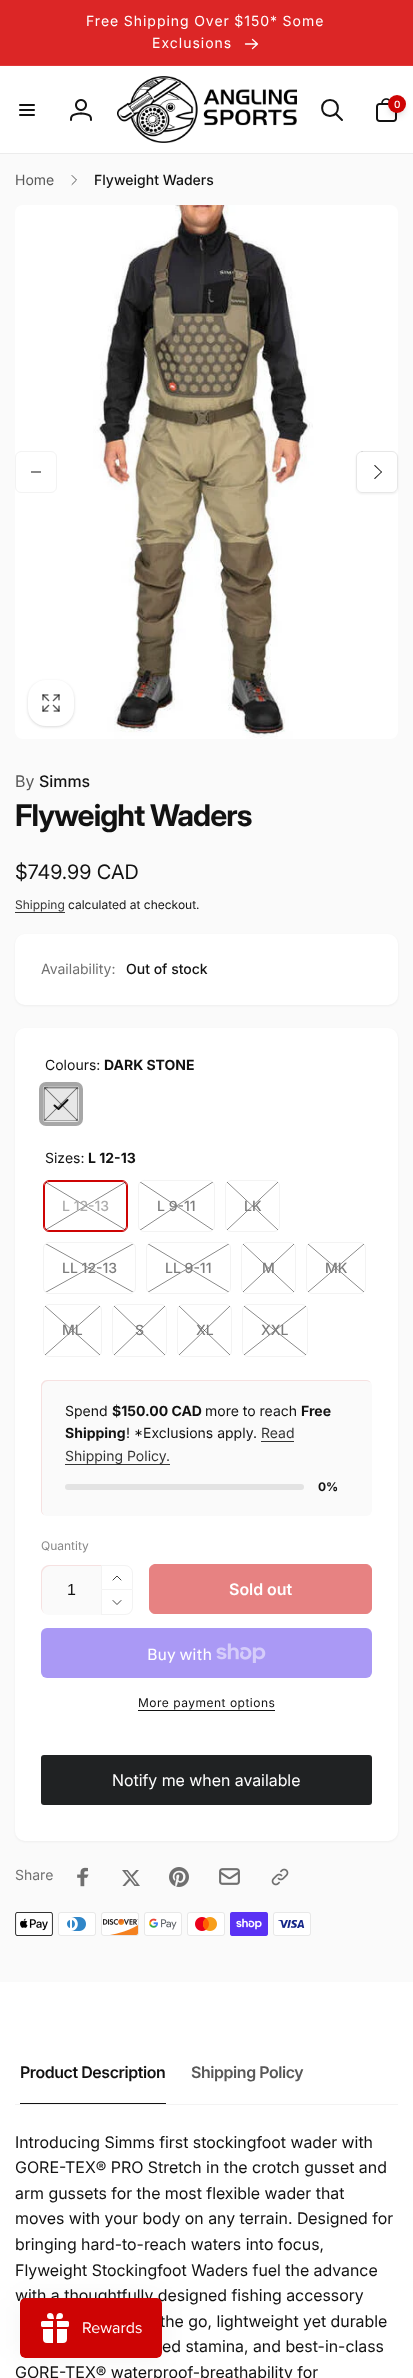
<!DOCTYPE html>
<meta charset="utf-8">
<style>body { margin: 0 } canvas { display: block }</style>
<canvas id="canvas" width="413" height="2378"></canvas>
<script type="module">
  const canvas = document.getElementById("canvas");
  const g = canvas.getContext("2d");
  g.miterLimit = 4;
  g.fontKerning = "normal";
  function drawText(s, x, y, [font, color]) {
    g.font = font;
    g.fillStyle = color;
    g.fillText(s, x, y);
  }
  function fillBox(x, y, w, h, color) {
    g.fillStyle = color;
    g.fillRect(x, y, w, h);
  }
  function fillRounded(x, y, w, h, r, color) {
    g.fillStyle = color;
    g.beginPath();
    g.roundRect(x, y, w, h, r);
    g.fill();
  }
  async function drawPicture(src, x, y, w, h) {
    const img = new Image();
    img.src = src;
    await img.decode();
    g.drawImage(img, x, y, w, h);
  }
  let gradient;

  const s1 = ["14px Inter", "#FFFFFF"];
  const s2 = ["500 10px Inter", "#FFFFFF"];
  const s3 = ["14px Inter", "#585858"];
  const s4 = ["500 14px Inter", "#121212"];
  const s5 = ["16px 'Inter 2'", "#585858"];
  const s6 = ["500 16px 'Inter 2'", "#121212"];
  const s7 = ["bold 30px Inter", "#121212"];
  const s8 = ["20px 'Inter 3'", "#121212"];
  const s9 = ["12px Inter", "#353535"];
  const s10 = ["12px Inter", "#121212"];
  const s11 = ["14px Inter", "#717171"];
  const s12 = ["14px Inter", "#121212"];
  const s13 = ["bold 14px 'Inter 2'", "#121212"];
  const s14 = ["500 14px Inter", "#ACACAC"];
  const s15 = ["500 14px Inter", "#7D7D7D"];
  const s16 = ["14px Inter", "#353535"];
  const s17 = ["bold 12px 'Inter 2'", "#121212"];
  const s18 = ["12px Inter", "#898989"];
  const s19 = ["16px Liberation Sans", "#121212"];
  const s20 = ["600 16px Inter", "#FFFFFF"];
  const s21 = ["16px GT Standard", "#FFFFFF"];
  const s22 = ["16px 'Inter 2'", "#FFFFFF"];
  const s23 = ["600 16px Inter", "#121212"];
  const s24 = ["600 16px Inter", "#585858"];
  const s25 = ["16px 'Inter 2'", "#121212"];

  fillBox(0, 0, 413, 2378, "#FFFFFF");
  fillBox(0, 0, 413, 65, "#DC2626");
  fillBox(0, 65, 413, 1, "#DF3737");
  g.letterSpacing = "1px";
  g.wordSpacing = "-0.5px";
  drawText("Free Shipping Over $150* Some", 86, 26, s1);
  g.wordSpacing = "0px";
  drawText("Exclusions", 152, 48, s1);
  g.beginPath();
  g.moveTo(252.5, 39.5);
  g.lineTo(257.5, 44);
  g.moveTo(257.5, 44);
  g.lineTo(252.5, 48.5);
  g.moveTo(257.5, 44);
  g.lineTo(245.5, 44);
  g.strokeStyle = "#FFFFFF";
  g.lineWidth = 1.3;
  g.lineCap = "round";
  g.lineJoin = "round";
  g.stroke();
  fillBox(0, 153, 413, 1, "#ECECEC");
  await drawPicture("pic1.png", 19, 104, 16, 12);
  await drawPicture("pic2.png", 70, 99, 22, 22);
  await drawPicture("pic3.png", 117, 76, 180, 67);
  g.beginPath();
  g.moveTo(342, 120);
  g.lineTo(335.5, 113.5);
  g.moveTo(330, 116);
  g.bezierCurveTo(340.5, 116, 340.5, 100, 330, 100);
  g.bezierCurveTo(319.5, 100, 319.5, 116, 330, 116);
  g.closePath();
  g.strokeStyle = "#121212";
  g.lineWidth = 2;
  g.stroke();
  await drawPicture("pic4.png", 376, 98, 21, 24);
  g.fillStyle = "rgba(18, 18, 18, 0.06)";
  g.filter = "blur(2px)";
  g.beginPath();
  g.roundRect(389, 98, 16, 16, 8);
  g.fill();
  g.filter = "none";
  g.fillStyle = "rgba(18, 18, 18, 0.1)";
  g.filter = "blur(3px)";
  g.beginPath();
  g.roundRect(389, 100, 16, 16, 8);
  g.fill();
  g.filter = "none";
  g.fillStyle = "#CE0404";
  g.beginPath();
  g.arc(397, 104, 9, 0, Math.PI * 2);
  g.fill();
  g.letterSpacing = "0px";
  drawText("0", 394, 108, s2);
  fillBox(0, 154, 413, 1828, "#FAFAFA");
  drawText("Home", 15, 185, s3);
  g.beginPath();
  g.moveTo(72, 175.5);
  g.lineTo(76.5, 180);
  g.lineTo(72, 184.5);
  g.strokeStyle = "#585858";
  g.lineWidth = 1;
  g.stroke();
  drawText("Flyweight Waders", 94, 185, s4);
  await drawPicture("pic5.png", 15, 205, 383, 534);
  g.fillStyle = "rgba(18, 18, 18, 0.06)";
  g.filter = "blur(1px)";
  g.beginPath();
  g.roundRect(28, 681, 46, 46, 18);
  g.fill();
  g.filter = "none";
  g.fillStyle = "rgba(18, 18, 18, 0.1)";
  g.filter = "blur(1.5px)";
  g.beginPath();
  g.roundRect(28, 681, 46, 46, 18);
  g.fill();
  g.filter = "none";
  fillRounded(28, 680, 46, 46, 18, "#FFFFFF");
  await drawPicture("pic6.png", 42, 694, 18, 18);
  g.beginPath();
  g.roundRect(15.5, 451.5, 41, 41, 5.5);
  g.strokeStyle = "#F3F3F3";
  g.lineJoin = "miter";
  g.stroke();
  fillBox(31, 471, 10, 2, "#898989");
  g.save();
  g.beginPath();
  g.moveTo(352, 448);
  g.lineTo(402, 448);
  g.lineTo(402, 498);
  g.lineTo(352, 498);
  g.closePath();
  g.moveTo(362, 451);
  g.lineTo(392, 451);
  g.bezierCurveTo(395.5, 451, 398, 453.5, 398, 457);
  g.lineTo(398, 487);
  g.bezierCurveTo(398, 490.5, 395.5, 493, 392, 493);
  g.lineTo(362, 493);
  g.bezierCurveTo(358.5, 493, 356, 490.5, 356, 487);
  g.lineTo(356, 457);
  g.bezierCurveTo(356, 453.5, 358.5, 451, 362, 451);
  g.closePath();
  g.clip("evenodd");
  g.fillStyle = "rgba(18, 18, 18, 0.07)";
  g.filter = "blur(1px)";
  g.beginPath();
  g.roundRect(356, 452, 42, 42, 6);
  g.fill();
  g.filter = "none";
  g.restore();
  g.beginPath();
  g.roundRect(356.5, 451.5, 41, 41, 5.5);
  g.strokeStyle = "rgba(18, 18, 18, 0.1)";
  g.stroke();
  g.fillStyle = "#121212";
  g.beginPath();
  g.moveTo(374, 465.5);
  g.lineTo(375, 465);
  g.lineTo(382, 472);
  g.lineTo(381.5, 472.5);
  g.closePath();
  g.fill();
  g.beginPath();
  g.moveTo(381.5, 471.5);
  g.lineTo(382, 472);
  g.lineTo(375, 479);
  g.lineTo(374, 478.5);
  g.closePath();
  g.fill();
  drawText("By", 15, 787, s5);
  drawText("Simms", 39, 787, s6);
  g.letterSpacing = "-0.9px";
  drawText("Flyweight Waders", 15, 826, s7);
  g.letterSpacing = "0px";
  drawText("$749.99 CAD", 15, 879, s8);
  drawText("Shipping", 15, 909, s9);
  fillBox(15, 912, 50, 1, "#353535");
  drawText("calculated at checkout.", 68, 909, s10);
  g.fillStyle = "rgba(18, 18, 18, 0.05)";
  g.filter = "blur(1px)";
  g.beginPath();
  g.roundRect(15, 935, 383, 71, 10);
  g.fill();
  g.filter = "none";
  fillRounded(15, 934, 383, 71, 10, "#FFFFFF");
  drawText("Availability:", 41, 974, s11);
  drawText("Out of stock", 126, 974, s4);
  g.fillStyle = "rgba(18, 18, 18, 0.05)";
  g.filter = "blur(1px)";
  g.beginPath();
  g.roundRect(15, 1029, 383, 813, 10);
  g.fill();
  g.filter = "none";
  fillRounded(15, 1028, 383, 813, 10, "#FFFFFF");
  drawText("Colours:", 45, 1070, s12);
  drawText("DARK STONE", 104, 1070, s13);
  fillRounded(43, 1086, 36, 36, 3, "#E7E7E7");
  g.fillStyle = "#BCBCBC";
  g.beginPath();
  g.moveTo(47, 1089);
  g.lineTo(77, 1089);
  g.bezierCurveTo(78, 1089, 78.5, 1089, 79, 1089.5);
  g.lineTo(79, 1089);
  g.bezierCurveTo(79, 1087.5, 77.5, 1086, 76, 1086);
  g.lineTo(46, 1086);
  g.bezierCurveTo(44.5, 1086, 43, 1087.5, 43, 1089);
  g.lineTo(43, 1119);
  g.bezierCurveTo(43, 1120, 43.5, 1120.5, 44, 1121);
  g.lineTo(44, 1092);
  g.bezierCurveTo(44, 1090, 45, 1089, 47, 1089);
  g.closePath();
  g.fill();
  g.beginPath();
  g.roundRect(41, 1084, 40, 40, 5);
  g.strokeStyle = "#A7A7A7";
  g.lineWidth = 4;
  g.stroke();
  gradient = g.createLinearGradient(13, 1088, 45, 1056);
  gradient.addColorStop(0, "#BCBCBC");
  gradient.addColorStop(0.48, "#BCBCBC");
  gradient.addColorStop(0.5, "#676767");
  gradient.addColorStop(0.52, "#BCBCBC");
  gradient.addColorStop(1, "#BCBCBC");
  g.fillStyle = gradient;
  g.fillRect(44, 1087, 1, 1);
  g.save();
  g.beginPath();
  g.roundRect(44, 1087, 34, 34, 3);
  g.clip();
  gradient = g.createLinearGradient(45, 1088, 77, 1056);
  gradient.addColorStop(0, "#BCBCBC");
  gradient.addColorStop(0.48, "#BCBCBC");
  gradient.addColorStop(0.5, "#676767");
  gradient.addColorStop(0.52, "#BCBCBC");
  gradient.addColorStop(1, "#BCBCBC");
  g.fillStyle = gradient;
  g.fillRect(45, 1087, 32, 1);
  g.restore();
  gradient = g.createLinearGradient(13, 1120, 45, 1088);
  gradient.addColorStop(0, "rgba(18, 18, 18, 0)");
  gradient.addColorStop(0.48, "rgba(18, 18, 18, 0)");
  gradient.addColorStop(0.5, "rgba(18, 18, 18, 0.5)");
  gradient.addColorStop(0.52, "rgba(18, 18, 18, 0)");
  gradient.addColorStop(1, "rgba(18, 18, 18, 0)");
  g.fillStyle = gradient;
  g.fillRect(44, 1118, 1, 2);
  gradient = g.createLinearGradient(45, 1120, 77, 1088);
  gradient.addColorStop(0, "rgba(18, 18, 18, 0)");
  gradient.addColorStop(0.48, "rgba(18, 18, 18, 0)");
  gradient.addColorStop(0.5, "rgba(18, 18, 18, 0.5)");
  gradient.addColorStop(0.52, "rgba(18, 18, 18, 0)");
  gradient.addColorStop(1, "rgba(18, 18, 18, 0)");
  g.fillStyle = gradient;
  g.fillRect(45, 1088, 32, 32);
  gradient = g.createLinearGradient(77, 1120, 109, 1088);
  gradient.addColorStop(0, "rgba(18, 18, 18, 0)");
  gradient.addColorStop(0.48, "rgba(18, 18, 18, 0)");
  gradient.addColorStop(0.5, "rgba(18, 18, 18, 0.5)");
  gradient.addColorStop(0.52, "rgba(18, 18, 18, 0)");
  gradient.addColorStop(1, "rgba(18, 18, 18, 0)");
  g.fillStyle = gradient;
  g.fillRect(77, 1088, 1, 2);
  g.save();
  g.beginPath();
  g.roundRect(44, 1087, 34, 34, 3);
  g.clip();
  gradient = g.createLinearGradient(45, 1152, 77, 1120);
  gradient.addColorStop(0, "#E7E7E7");
  gradient.addColorStop(0.48, "#E7E7E7");
  gradient.addColorStop(0.5, "#7D7D7D");
  gradient.addColorStop(0.52, "#E7E7E7");
  gradient.addColorStop(1, "#E7E7E7");
  g.fillStyle = gradient;
  g.fillRect(45, 1120, 32, 1);
  g.restore();
  gradient = g.createLinearGradient(77, 1152, 109, 1120);
  gradient.addColorStop(0, "#E7E7E7");
  gradient.addColorStop(0.48, "#E7E7E7");
  gradient.addColorStop(0.5, "#7D7D7D");
  gradient.addColorStop(0.52, "#E7E7E7");
  gradient.addColorStop(1, "#E7E7E7");
  g.fillStyle = gradient;
  g.fillRect(77, 1120, 1, 1);
  gradient = g.createLinearGradient(77, 1088, 45, 1056);
  gradient.addColorStop(0, "rgba(18, 18, 18, 0)");
  gradient.addColorStop(0.48, "rgba(18, 18, 18, 0)");
  gradient.addColorStop(0.5, "rgba(18, 18, 18, 0.5)");
  gradient.addColorStop(0.52, "rgba(18, 18, 18, 0)");
  gradient.addColorStop(1, "rgba(18, 18, 18, 0)");
  g.fillStyle = gradient;
  g.fillRect(45, 1087, 2, 1);
  gradient = g.createLinearGradient(109, 1088, 77, 1056);
  gradient.addColorStop(0, "#BCBCBC");
  gradient.addColorStop(0.48, "#BCBCBC");
  gradient.addColorStop(0.5, "#676767");
  gradient.addColorStop(0.52, "#BCBCBC");
  gradient.addColorStop(1, "#BCBCBC");
  g.fillStyle = gradient;
  g.fillRect(77, 1087, 1, 1);
  gradient = g.createLinearGradient(45, 1120, 13, 1088);
  gradient.addColorStop(0, "rgba(18, 18, 18, 0)");
  gradient.addColorStop(0.48, "rgba(18, 18, 18, 0)");
  gradient.addColorStop(0.5, "rgba(18, 18, 18, 0.5)");
  gradient.addColorStop(0.52, "rgba(18, 18, 18, 0)");
  gradient.addColorStop(1, "rgba(18, 18, 18, 0)");
  g.fillStyle = gradient;
  g.fillRect(44, 1088, 1, 2);
  gradient = g.createLinearGradient(77, 1120, 45, 1088);
  gradient.addColorStop(0, "rgba(18, 18, 18, 0)");
  gradient.addColorStop(0.48, "rgba(18, 18, 18, 0)");
  gradient.addColorStop(0.5, "rgba(18, 18, 18, 0.5)");
  gradient.addColorStop(0.52, "rgba(18, 18, 18, 0)");
  gradient.addColorStop(1, "rgba(18, 18, 18, 0)");
  g.fillStyle = gradient;
  g.fillRect(45, 1088, 32, 32);
  gradient = g.createLinearGradient(109, 1120, 77, 1088);
  gradient.addColorStop(0, "rgba(18, 18, 18, 0)");
  gradient.addColorStop(0.48, "rgba(18, 18, 18, 0)");
  gradient.addColorStop(0.5, "rgba(18, 18, 18, 0.5)");
  gradient.addColorStop(0.52, "rgba(18, 18, 18, 0)");
  gradient.addColorStop(1, "rgba(18, 18, 18, 0)");
  g.fillStyle = gradient;
  g.fillRect(77, 1118, 1, 2);
  gradient = g.createLinearGradient(45, 1152, 13, 1120);
  gradient.addColorStop(0, "#E7E7E7");
  gradient.addColorStop(0.48, "#E7E7E7");
  gradient.addColorStop(0.5, "#7D7D7D");
  gradient.addColorStop(0.52, "#E7E7E7");
  gradient.addColorStop(1, "#E7E7E7");
  g.fillStyle = gradient;
  g.fillRect(44, 1120, 1, 1);
  gradient = g.createLinearGradient(77, 1152, 45, 1120);
  gradient.addColorStop(0, "rgba(18, 18, 18, 0)");
  gradient.addColorStop(0.48, "rgba(18, 18, 18, 0)");
  gradient.addColorStop(0.5, "rgba(18, 18, 18, 0.5)");
  gradient.addColorStop(0.52, "rgba(18, 18, 18, 0)");
  gradient.addColorStop(1, "rgba(18, 18, 18, 0)");
  g.fillStyle = gradient;
  g.fillRect(75, 1120, 2, 1);
  g.beginPath();
  g.roundRect(44.5, 1087.5, 33, 33, 2.5);
  g.strokeStyle = "rgba(18, 18, 18, 0.3)";
  g.lineWidth = 1;
  g.stroke();
  g.beginPath();
  g.moveTo(54.5, 1105.5);
  g.lineTo(58.5, 1109);
  g.lineTo(67.5, 1100);
  g.strokeStyle = "#121212";
  g.lineWidth = 2;
  g.lineJoin = "round";
  g.stroke();
  drawText("Sizes:", 45, 1163, s12);
  drawText("L 12-13", 88, 1163, s13);
  g.beginPath();
  g.roundRect(43.5, 1180.5, 84, 51, 5.5);
  g.strokeStyle = "#CE0404";
  g.lineWidth = 1;
  g.lineJoin = "miter";
  g.stroke();
  g.beginPath();
  g.roundRect(44.5, 1181.5, 82, 49, 4.5);
  g.stroke();
  gradient = g.createLinearGradient(64, 1242, 107, 1170);
  gradient.addColorStop(0, "rgba(18, 18, 18, 0)");
  gradient.addColorStop(0.49, "rgba(18, 18, 18, 0)");
  gradient.addColorStop(0.5, "rgba(18, 18, 18, 0.5)");
  gradient.addColorStop(0.51, "rgba(18, 18, 18, 0)");
  gradient.addColorStop(1, "rgba(18, 18, 18, 0)");
  g.fillStyle = gradient;
  g.fillRect(45, 1182, 81, 48);
  gradient = g.createLinearGradient(107, 1242, 64, 1170);
  gradient.addColorStop(0, "rgba(18, 18, 18, 0)");
  gradient.addColorStop(0.49, "rgba(18, 18, 18, 0)");
  gradient.addColorStop(0.5, "rgba(18, 18, 18, 0.5)");
  gradient.addColorStop(0.51, "rgba(18, 18, 18, 0)");
  gradient.addColorStop(1, "rgba(18, 18, 18, 0)");
  g.fillStyle = gradient;
  g.fillRect(45, 1182, 81, 48);
  drawText("L 12-13", 62, 1211, s14);
  g.beginPath();
  g.roundRect(138.5, 1180.5, 76, 51, 5.5);
  g.strokeStyle = "#F3F3F3";
  g.stroke();
  gradient = g.createLinearGradient(154, 1240, 199, 1172);
  gradient.addColorStop(0, "rgba(18, 18, 18, 0)");
  gradient.addColorStop(0.49, "rgba(18, 18, 18, 0)");
  gradient.addColorStop(0.5, "rgba(18, 18, 18, 0.5)");
  gradient.addColorStop(0.51, "rgba(18, 18, 18, 0)");
  gradient.addColorStop(1, "rgba(18, 18, 18, 0)");
  g.fillStyle = gradient;
  g.fillRect(140, 1182, 73, 48);
  gradient = g.createLinearGradient(199, 1240, 154, 1172);
  gradient.addColorStop(0, "rgba(18, 18, 18, 0)");
  gradient.addColorStop(0.49, "rgba(18, 18, 18, 0)");
  gradient.addColorStop(0.5, "rgba(18, 18, 18, 0.5)");
  gradient.addColorStop(0.51, "rgba(18, 18, 18, 0)");
  gradient.addColorStop(1, "rgba(18, 18, 18, 0)");
  g.fillStyle = gradient;
  g.fillRect(140, 1182, 73, 48);
  drawText("L 9-11", 157, 1211, s15);
  g.beginPath();
  g.roundRect(225.5, 1180.5, 54, 51, 5.5);
  g.stroke();
  gradient = g.createLinearGradient(229, 1231, 276, 1181);
  gradient.addColorStop(0, "rgba(18, 18, 18, 0)");
  gradient.addColorStop(0.49, "rgba(18, 18, 18, 0)");
  gradient.addColorStop(0.5, "rgba(18, 18, 18, 0.5)");
  gradient.addColorStop(0.51, "rgba(18, 18, 18, 0)");
  gradient.addColorStop(1, "rgba(18, 18, 18, 0)");
  g.fillStyle = gradient;
  g.fillRect(227, 1182, 51, 48);
  gradient = g.createLinearGradient(276, 1231, 229, 1181);
  gradient.addColorStop(0, "rgba(18, 18, 18, 0)");
  gradient.addColorStop(0.49, "rgba(18, 18, 18, 0)");
  gradient.addColorStop(0.5, "rgba(18, 18, 18, 0.5)");
  gradient.addColorStop(0.51, "rgba(18, 18, 18, 0)");
  gradient.addColorStop(1, "rgba(18, 18, 18, 0)");
  g.fillStyle = gradient;
  g.fillRect(227, 1182, 51, 48);
  drawText("LK", 244, 1211, s15);
  g.beginPath();
  g.roundRect(43.5, 1242.5, 92, 51, 5.5);
  g.stroke();
  gradient = g.createLinearGradient(69, 1305, 110, 1231);
  gradient.addColorStop(0, "rgba(18, 18, 18, 0)");
  gradient.addColorStop(0.49, "rgba(18, 18, 18, 0)");
  gradient.addColorStop(0.5, "rgba(18, 18, 18, 0.5)");
  gradient.addColorStop(0.51, "rgba(18, 18, 18, 0)");
  gradient.addColorStop(1, "rgba(18, 18, 18, 0)");
  g.fillStyle = gradient;
  g.fillRect(45, 1244, 89, 48);
  gradient = g.createLinearGradient(110, 1305, 69, 1231);
  gradient.addColorStop(0, "rgba(18, 18, 18, 0)");
  gradient.addColorStop(0.49, "rgba(18, 18, 18, 0)");
  gradient.addColorStop(0.5, "rgba(18, 18, 18, 0.5)");
  gradient.addColorStop(0.51, "rgba(18, 18, 18, 0)");
  gradient.addColorStop(1, "rgba(18, 18, 18, 0)");
  g.fillStyle = gradient;
  g.fillRect(45, 1244, 89, 48);
  drawText("LL 12-13", 62, 1273, s15);
  g.beginPath();
  g.roundRect(146.5, 1242.5, 84, 51, 5.5);
  g.stroke();
  gradient = g.createLinearGradient(167, 1304, 210, 1232);
  gradient.addColorStop(0, "rgba(18, 18, 18, 0)");
  gradient.addColorStop(0.49, "rgba(18, 18, 18, 0)");
  gradient.addColorStop(0.5, "rgba(18, 18, 18, 0.5)");
  gradient.addColorStop(0.51, "rgba(18, 18, 18, 0)");
  gradient.addColorStop(1, "rgba(18, 18, 18, 0)");
  g.fillStyle = gradient;
  g.fillRect(148, 1244, 81, 48);
  gradient = g.createLinearGradient(210, 1304, 167, 1232);
  gradient.addColorStop(0, "rgba(18, 18, 18, 0)");
  gradient.addColorStop(0.49, "rgba(18, 18, 18, 0)");
  gradient.addColorStop(0.5, "rgba(18, 18, 18, 0.5)");
  gradient.addColorStop(0.51, "rgba(18, 18, 18, 0)");
  gradient.addColorStop(1, "rgba(18, 18, 18, 0)");
  g.fillStyle = gradient;
  g.fillRect(148, 1244, 81, 48);
  drawText("LL 9-11", 165, 1273, s15);
  g.beginPath();
  g.roundRect(241.5, 1242.5, 54, 51, 5.5);
  g.stroke();
  gradient = g.createLinearGradient(245, 1293, 292, 1243);
  gradient.addColorStop(0, "rgba(18, 18, 18, 0)");
  gradient.addColorStop(0.49, "rgba(18, 18, 18, 0)");
  gradient.addColorStop(0.5, "rgba(18, 18, 18, 0.5)");
  gradient.addColorStop(0.51, "rgba(18, 18, 18, 0)");
  gradient.addColorStop(1, "rgba(18, 18, 18, 0)");
  g.fillStyle = gradient;
  g.fillRect(243, 1244, 51, 48);
  gradient = g.createLinearGradient(292, 1293, 245, 1243);
  gradient.addColorStop(0, "rgba(18, 18, 18, 0)");
  gradient.addColorStop(0.49, "rgba(18, 18, 18, 0)");
  gradient.addColorStop(0.5, "rgba(18, 18, 18, 0.5)");
  gradient.addColorStop(0.51, "rgba(18, 18, 18, 0)");
  gradient.addColorStop(1, "rgba(18, 18, 18, 0)");
  g.fillStyle = gradient;
  g.fillRect(243, 1244, 51, 48);
  drawText("M", 262, 1273, s15);
  g.beginPath();
  g.roundRect(306.5, 1242.5, 59, 51, 5.5);
  g.stroke();
  gradient = g.createLinearGradient(312, 1296, 360, 1240);
  gradient.addColorStop(0, "rgba(18, 18, 18, 0)");
  gradient.addColorStop(0.49, "rgba(18, 18, 18, 0)");
  gradient.addColorStop(0.5, "rgba(18, 18, 18, 0.5)");
  gradient.addColorStop(0.51, "rgba(18, 18, 18, 0)");
  gradient.addColorStop(1, "rgba(18, 18, 18, 0)");
  g.fillStyle = gradient;
  g.fillRect(308, 1244, 56, 48);
  gradient = g.createLinearGradient(360, 1296, 312, 1240);
  gradient.addColorStop(0, "rgba(18, 18, 18, 0)");
  gradient.addColorStop(0.49, "rgba(18, 18, 18, 0)");
  gradient.addColorStop(0.5, "rgba(18, 18, 18, 0.5)");
  gradient.addColorStop(0.51, "rgba(18, 18, 18, 0)");
  gradient.addColorStop(1, "rgba(18, 18, 18, 0)");
  g.fillStyle = gradient;
  g.fillRect(308, 1244, 56, 48);
  drawText("MK", 325, 1273, s15);
  g.beginPath();
  g.roundRect(43.5, 1304.5, 58, 52, 5.5);
  g.stroke();
  gradient = g.createLinearGradient(48, 1358, 97, 1303);
  gradient.addColorStop(0, "rgba(18, 18, 18, 0)");
  gradient.addColorStop(0.49, "rgba(18, 18, 18, 0)");
  gradient.addColorStop(0.5, "rgba(18, 18, 18, 0.5)");
  gradient.addColorStop(0.51, "rgba(18, 18, 18, 0)");
  gradient.addColorStop(1, "rgba(18, 18, 18, 0)");
  g.fillStyle = gradient;
  g.fillRect(45, 1306, 55, 49);
  gradient = g.createLinearGradient(97, 1358, 48, 1303);
  gradient.addColorStop(0, "rgba(18, 18, 18, 0)");
  gradient.addColorStop(0.49, "rgba(18, 18, 18, 0)");
  gradient.addColorStop(0.5, "rgba(18, 18, 18, 0.5)");
  gradient.addColorStop(0.51, "rgba(18, 18, 18, 0)");
  gradient.addColorStop(1, "rgba(18, 18, 18, 0)");
  g.fillStyle = gradient;
  g.fillRect(45, 1306, 55, 49);
  drawText("ML", 62, 1335, s15);
  g.beginPath();
  g.roundRect(112.5, 1304.5, 54, 52, 5.5);
  g.stroke();
  gradient = g.createLinearGradient(115, 1356, 164, 1305);
  gradient.addColorStop(0, "rgba(18, 18, 18, 0)");
  gradient.addColorStop(0.49, "rgba(18, 18, 18, 0)");
  gradient.addColorStop(0.5, "rgba(18, 18, 18, 0.5)");
  gradient.addColorStop(0.51, "rgba(18, 18, 18, 0)");
  gradient.addColorStop(1, "rgba(18, 18, 18, 0)");
  g.fillStyle = gradient;
  g.fillRect(114, 1306, 51, 49);
  gradient = g.createLinearGradient(164, 1356, 115, 1305);
  gradient.addColorStop(0, "rgba(18, 18, 18, 0)");
  gradient.addColorStop(0.49, "rgba(18, 18, 18, 0)");
  gradient.addColorStop(0.5, "rgba(18, 18, 18, 0.5)");
  gradient.addColorStop(0.51, "rgba(18, 18, 18, 0)");
  gradient.addColorStop(1, "rgba(18, 18, 18, 0)");
  g.fillStyle = gradient;
  g.fillRect(114, 1306, 51, 49);
  drawText("S", 135, 1335, s15);
  g.beginPath();
  g.roundRect(177.5, 1304.5, 54, 52, 5.5);
  g.stroke();
  gradient = g.createLinearGradient(180, 1356, 229, 1305);
  gradient.addColorStop(0, "rgba(18, 18, 18, 0)");
  gradient.addColorStop(0.49, "rgba(18, 18, 18, 0)");
  gradient.addColorStop(0.5, "rgba(18, 18, 18, 0.5)");
  gradient.addColorStop(0.51, "rgba(18, 18, 18, 0)");
  gradient.addColorStop(1, "rgba(18, 18, 18, 0)");
  g.fillStyle = gradient;
  g.fillRect(179, 1306, 51, 49);
  gradient = g.createLinearGradient(229, 1356, 180, 1305);
  gradient.addColorStop(0, "rgba(18, 18, 18, 0)");
  gradient.addColorStop(0.49, "rgba(18, 18, 18, 0)");
  gradient.addColorStop(0.5, "rgba(18, 18, 18, 0.5)");
  gradient.addColorStop(0.51, "rgba(18, 18, 18, 0)");
  gradient.addColorStop(1, "rgba(18, 18, 18, 0)");
  g.fillStyle = gradient;
  g.fillRect(179, 1306, 51, 49);
  drawText("XL", 196, 1335, s15);
  g.beginPath();
  g.roundRect(242.5, 1304.5, 65, 52, 5.5);
  g.stroke();
  gradient = g.createLinearGradient(251, 1361, 299, 1300);
  gradient.addColorStop(0, "rgba(18, 18, 18, 0)");
  gradient.addColorStop(0.49, "rgba(18, 18, 18, 0)");
  gradient.addColorStop(0.5, "rgba(18, 18, 18, 0.5)");
  gradient.addColorStop(0.51, "rgba(18, 18, 18, 0)");
  gradient.addColorStop(1, "rgba(18, 18, 18, 0)");
  g.fillStyle = gradient;
  g.fillRect(244, 1306, 62, 49);
  gradient = g.createLinearGradient(299, 1361, 251, 1300);
  gradient.addColorStop(0, "rgba(18, 18, 18, 0)");
  gradient.addColorStop(0.49, "rgba(18, 18, 18, 0)");
  gradient.addColorStop(0.5, "rgba(18, 18, 18, 0.5)");
  gradient.addColorStop(0.51, "rgba(18, 18, 18, 0)");
  gradient.addColorStop(1, "rgba(18, 18, 18, 0)");
  g.fillStyle = gradient;
  g.fillRect(244, 1306, 62, 49);
  drawText("XXL", 261, 1335, s15);
  fillRounded(41, 1380, 331, 136, 6, "#FAFAFA");
  g.fillStyle = "#F6E1E1";
  g.beginPath();
  g.moveTo(48, 1381);
  g.lineTo(367, 1381);
  g.bezierCurveTo(368, 1381, 370, 1382, 371, 1383);
  g.bezierCurveTo(370, 1381, 368, 1380, 366, 1380);
  g.lineTo(47, 1380);
  g.bezierCurveTo(44, 1380, 41, 1383, 41, 1386);
  g.lineTo(41, 1510);
  g.bezierCurveTo(41, 1512, 42, 1514, 44, 1515);
  g.lineTo(42, 1512);
  g.lineTo(42, 1387);
  g.bezierCurveTo(42, 1384, 45, 1381, 48, 1381);
  g.closePath();
  g.fill();
  drawText("Spend", 65, 1416, s12);
  drawText("$150.00 CAD", 112, 1416, s13);
  drawText("more to reach", 205, 1416, s12);
  drawText("Free", 301, 1416, s13);
  drawText("Shipping", 65, 1438, s13);
  drawText("! *Exclusions apply.", 126, 1438, s12);
  drawText("Read", 261, 1438, s16);
  fillBox(261, 1441, 33, 1, "#353535");
  drawText("Shipping Policy.", 65, 1461, s16);
  fillBox(65, 1464, 105, 1, "#353535");
  fillRounded(65, 1484, 239, 6, 3, "#E3E3E3");
  drawText("0%", 318, 1491, s17);
  drawText("Quantity", 41, 1550, s18);
  g.fillStyle = "#FAFAFA";
  g.beginPath();
  g.roundRect(41, 1565, 60, 50, [8, 0, 0, 8]);
  g.fill();
  g.fillStyle = "#F6E1E1";
  g.beginPath();
  g.moveTo(50, 1566);
  g.lineTo(101, 1566);
  g.lineTo(101, 1565);
  g.lineTo(49, 1565);
  g.bezierCurveTo(45, 1565, 41, 1569, 41, 1573);
  g.lineTo(41, 1607);
  g.bezierCurveTo(41, 1610, 43, 1612, 45, 1614);
  g.bezierCurveTo(43, 1612, 42, 1610, 42, 1608);
  g.lineTo(42, 1574);
  g.bezierCurveTo(42, 1570, 46, 1566, 50, 1566);
  g.closePath();
  g.fill();
  drawText("1", 67, 1595, s19);
  g.beginPath();
  g.roundRect(101.5, 1565.5, 31, 24, [0, 7.5, 0, 0]);
  g.stroke();
  g.fillStyle = "#F3F3F3";
  g.beginPath();
  g.moveTo(101, 1590);
  g.lineTo(133, 1590);
  g.lineTo(133, 1607);
  g.bezierCurveTo(133, 1611.5, 129.5, 1615, 125, 1615);
  g.lineTo(101, 1615);
  g.closePath();
  g.moveTo(102, 1590);
  g.lineTo(132, 1590);
  g.lineTo(132, 1607);
  g.bezierCurveTo(132, 1611, 129, 1614, 125, 1614);
  g.lineTo(102, 1614);
  g.closePath();
  g.fill("evenodd");
  g.beginPath();
  g.moveTo(121, 1580);
  g.lineTo(117, 1576);
  g.lineTo(113, 1580);
  g.moveTo(121, 1600.5);
  g.lineTo(117, 1604.5);
  g.lineTo(113, 1600.5);
  g.strokeStyle = "#121212";
  g.lineWidth = 0.8;
  g.lineJoin = "round";
  g.stroke();
  g.fillStyle = "#E78282";
  g.beginPath();
  g.roundRect(149.5, 1564.5, 222, 49, 5.5);
  g.fill();
  g.strokeStyle = "#E78282";
  g.lineWidth = 1;
  g.lineJoin = "miter";
  g.stroke();
  drawText("Sold out", 229, 1595, s20);
  fillRounded(41, 1628, 331, 50, 6, "#AA99F5");
  drawText("Buy with", 147, 1660, s21);
  await drawPicture("pic7.png", 216, 1643, 50, 20);
  g.letterSpacing = "0.5px";
  drawText("More payment options", 138, 1707, s10);
  fillBox(138, 1710, 137, 1, "#121212");
  fillRounded(41, 1755, 331, 50, 3, "#202223");
  g.letterSpacing = "0px";
  drawText("Notify me when available", 112, 1786, s22);
  drawText("Share", 15, 1880, s11);
  await drawPicture("pic8.png", 77, 1867, 12, 20);
  await drawPicture("pic9.png", 122, 1870, 18, 16);
  await drawPicture("pic10.png", 169, 1867, 20, 20);
  await drawPicture("pic11.png", 219, 1868, 21, 17);
  await drawPicture("pic12.png", 271, 1868, 18, 18);
  await drawPicture("pic13.png", 15, 1912, 38, 24);
  await drawPicture("pic14.png", 58, 1912, 38, 24);
  await drawPicture("pic15.png", 101, 1912, 38, 24);
  await drawPicture("pic16.png", 144, 1912, 38, 24);
  await drawPicture("pic17.png", 187, 1912, 38, 24);
  await drawPicture("pic18.png", 230, 1912, 38, 24);
  await drawPicture("pic19.png", 273, 1912, 38, 24);
  fillBox(15, 2104, 383, 1, "#F3F3F3");
  fillBox(20, 2103, 146, 1, "#121212");
  g.letterSpacing = "-0.4px";
  drawText("Product Description", 20, 2078, s23);
  drawText("Shipping Policy", 191, 2078, s24);
  g.letterSpacing = "0px";
  drawText("Introducing Simms first stockingfoot wader with", 15, 2148, s25);
  drawText("GORE-TEX® PRO Stretch in the crotch gusset and", 15, 2173, s25);
  drawText("arm gussets for the most flexible wader that", 15, 2199, s25);
  drawText("moves with your body on any terrain. Designed for", 15, 2224, s25);
  drawText("bringing hard-to-reach waters into focus,", 15, 2250, s25);
  drawText("Flyweight Stockingfoot Waders fuel the advance", 15, 2276, s25);
  drawText("with a thoughtfully designed fishing accessory", 15, 2301, s25);
  drawText("the go, lightweight yet durable", 160, 2327, s25);
  drawText("ed stamina, and best-in-class", 162, 2352, s25);
  drawText("GORE-TEX® waterproof-breathability for", 15, 2378, s25);
  g.fillStyle = "rgba(0, 0, 0, 0.05)";
  g.filter = "blur(12.5px)";
  g.beginPath();
  g.roundRect(20, 2298, 142, 60, 5);
  g.fill();
  g.filter = "none";
  await drawPicture("pic20.png", 20, 2298, 142, 60);
</script>
